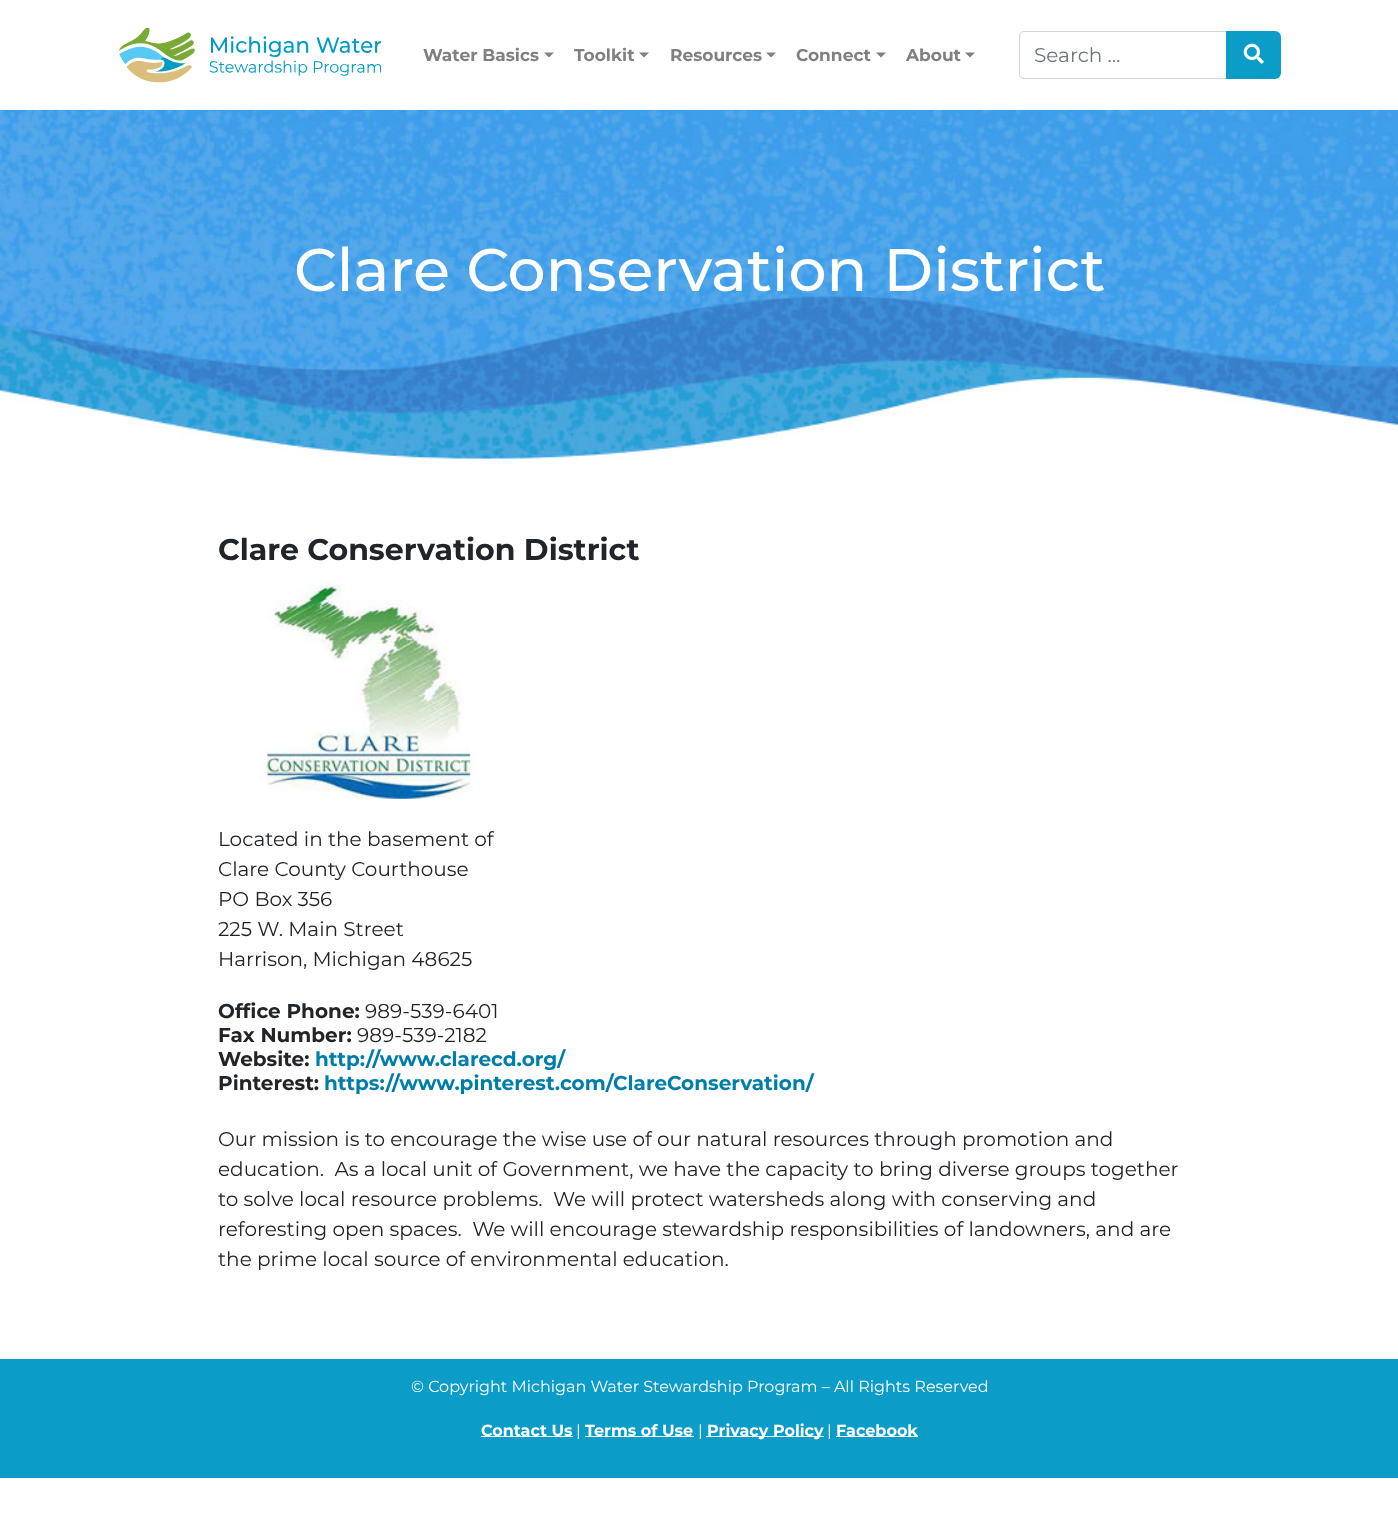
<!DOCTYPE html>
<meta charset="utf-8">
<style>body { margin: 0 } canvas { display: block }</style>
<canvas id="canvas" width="1398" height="1539"></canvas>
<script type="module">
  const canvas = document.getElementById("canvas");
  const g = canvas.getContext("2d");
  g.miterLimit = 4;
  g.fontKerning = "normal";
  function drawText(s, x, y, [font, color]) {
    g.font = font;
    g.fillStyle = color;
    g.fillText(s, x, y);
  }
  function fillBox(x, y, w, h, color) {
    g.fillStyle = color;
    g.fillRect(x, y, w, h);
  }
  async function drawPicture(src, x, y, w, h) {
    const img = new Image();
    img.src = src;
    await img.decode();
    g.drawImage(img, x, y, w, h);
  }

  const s1 = ["bold 17px Montserrat", "#808080"];
  const s2 = ["20px Montserrat", "#6C757D"];
  const s3 = ["500 60px Montserrat", "#FFFFFF"];
  const s4 = ["bold 30px Montserrat", "#212529"];
  const s5 = ["20px Montserrat", "#212529"];
  const s6 = ["bold 20px Montserrat", "#212529"];
  const s7 = ["bold 20px Montserrat", "#007EAA"];
  const s8 = ["16px Montserrat", "#FFFFFF"];
  const s9 = ["bold 16px Montserrat", "#FFFFFF"];

  fillBox(0, 0, 1398, 1539, "#FFFFFF");
  await drawPicture("pic1.png", 119, 28, 262, 55);
  drawText("Water Basics", 423, 61, s1);
  g.beginPath();
  g.moveTo(544, 52.5);
  g.lineTo(554, 52.5);
  g.lineTo(549, 57.5);
  g.closePath();
  g.fill();
  drawText("Toolkit", 574, 61, s1);
  g.beginPath();
  g.moveTo(639, 52.5);
  g.lineTo(649, 52.5);
  g.lineTo(644, 57.5);
  g.closePath();
  g.fill();
  drawText("Resources", 670, 61, s1);
  g.beginPath();
  g.moveTo(766, 52.5);
  g.lineTo(776, 52.5);
  g.lineTo(771, 57.5);
  g.closePath();
  g.fill();
  drawText("Connect", 796, 61, s1);
  g.beginPath();
  g.moveTo(876, 52.5);
  g.lineTo(886, 52.5);
  g.lineTo(881, 57.5);
  g.closePath();
  g.fill();
  drawText("About", 906, 61, s1);
  g.beginPath();
  g.moveTo(965, 52.5);
  g.lineTo(975, 52.5);
  g.lineTo(970, 57.5);
  g.closePath();
  g.fill();
  g.beginPath();
  g.roundRect(1019.5, 31.5, 208, 47, [4.5, 0, 0, 4.5]);
  g.strokeStyle = "#CED4DA";
  g.stroke();
  drawText("Search …", 1034, 62, s2);
  g.fillStyle = "#0C9CC8";
  g.beginPath();
  g.roundRect(1226, 31, 55, 48, [0, 6, 6, 0]);
  g.fill();
  await drawPicture("pic2.png", 1243, 43, 21, 21);
  await drawPicture("pic3.png", 0, 110, 1398, 350);
  drawText("Clare Conservation District", 294, 291, s3);
  drawText("Clare Conservation District", 218, 560, s4);
  await drawPicture("pic4.png", 259, 581, 217, 219);
  drawText("Located in the basement of", 218, 846, s5);
  drawText("Clare County Courthouse", 218, 876, s5);
  drawText("PO Box 356", 218, 906, s5);
  drawText("225 W. Main Street", 218, 936, s5);
  drawText("Harrison, Michigan 48625", 218, 966, s5);
  drawText("Office Phone:", 218, 1018, s6);
  drawText("989-539-6401", 365, 1018, s5);
  drawText("Fax Number:", 218, 1042, s6);
  drawText("989-539-2182", 357, 1042, s5);
  drawText("Website:", 218, 1066, s6);
  drawText("http://www.clarecd.org/", 315, 1066, s7);
  drawText("Pinterest:", 218, 1090, s6);
  drawText("https://www.pinterest.com/ClareConservation/", 324, 1090, s7);
  drawText("Our mission is to encourage the wise use of our natural resources through promotion and", 218, 1146, s5);
  drawText("education.  As a local unit of Government, we have the capacity to bring diverse groups together", 218, 1176, s5);
  drawText("to solve local resource problems.  We will protect watersheds along with conserving and", 218, 1206, s5);
  drawText("reforesting open spaces.  We will encourage stewardship responsibilities of landowners, and are", 218, 1236, s5);
  drawText("the prime local source of environmental education.", 218, 1266, s5);
  fillBox(0, 1359, 1398, 119, "#0C9CC8");
  drawText("© Copyright Michigan Water Stewardship Program – All Rights Reserved", 411, 1392, s8);
  fillBox(481, 1436, 92, 1, "#FFFFFF");
  drawText("Contact Us", 481, 1436, s9);
  drawText("|", 576, 1436, s8);
  fillBox(585, 1436, 109, 1, "#FFFFFF");
  drawText("Terms of Use", 585, 1436, s9);
  drawText("|", 698, 1436, s8);
  fillBox(706, 1436, 118, 1, "#FFFFFF");
  drawText("Privacy Policy", 707, 1436, s9);
  drawText("|", 827, 1436, s8);
  fillBox(836, 1436, 82, 1, "#FFFFFF");
  drawText("Facebook", 836, 1436, s9);
</script>
